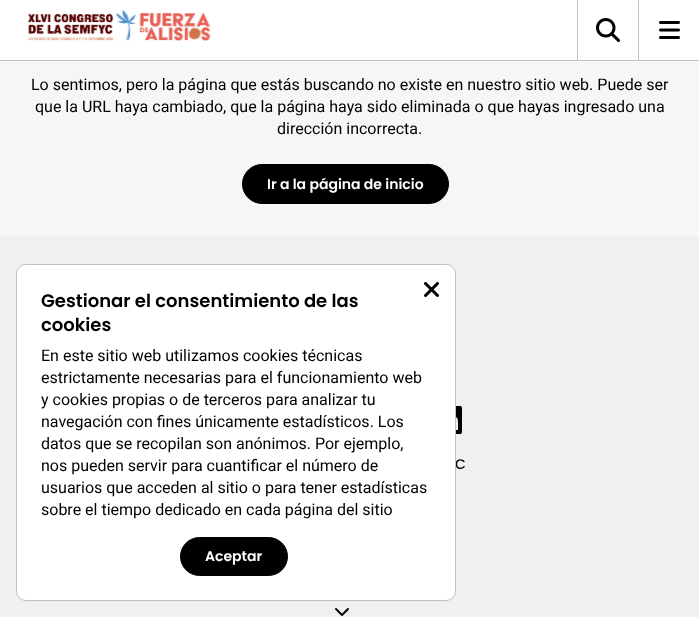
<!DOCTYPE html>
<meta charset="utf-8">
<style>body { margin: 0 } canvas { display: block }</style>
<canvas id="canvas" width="699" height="617"></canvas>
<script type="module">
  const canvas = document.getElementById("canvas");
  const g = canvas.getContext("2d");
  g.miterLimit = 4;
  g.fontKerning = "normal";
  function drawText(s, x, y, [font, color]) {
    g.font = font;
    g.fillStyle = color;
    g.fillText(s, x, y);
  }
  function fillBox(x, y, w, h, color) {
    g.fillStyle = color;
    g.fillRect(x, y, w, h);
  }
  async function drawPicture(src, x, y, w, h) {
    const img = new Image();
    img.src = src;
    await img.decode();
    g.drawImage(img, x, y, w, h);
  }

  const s1 = ["16px Roboto", "#000000"];
  const s2 = ["600 14px Poppins", "#FFFFFF"];
  const s3 = ["500 14px Poppins", "#000000"];
  const s4 = ["600 18px Poppins", "#000000"];

  fillBox(0, 0, 699, 617, "#F4F6F8");
  fillBox(0, 0, 699, 60, "#FFFFFF");
  fillBox(0, 60, 699, 1, "#BDBFC1");
  await drawPicture("pic1.png", 27, 10, 184, 31);
  fillBox(577, 0, 1, 60, "#BDBFC1");
  await drawPicture("pic2.png", 596, 18, 24, 24);
  fillBox(638, 0, 1, 60, "#BDBFC1");
  await drawPicture("pic3.png", 659, 21, 21, 18);
  drawText("Lo sentimos, pero la página que estás buscando no existe en nuestro sitio web. Puede ser", 31, 90, s1);
  drawText("que la URL haya cambiado, que la página haya sido eliminada o que hayas ingresado una", 35, 112, s1);
  drawText("dirección incorrecta.", 277, 134, s1);
  g.beginPath();
  g.roundRect(242.5, 164.5, 206, 39, 19.5);
  g.fill();
  g.strokeStyle = "#000000";
  g.stroke();
  drawText("Ir a la página de inicio", 267, 189, s2);
  fillBox(0, 236, 699, 381, "#EEF0F1");
  drawText("C", 455, 469, s3);
  g.fillStyle = "#FFFFFF";
  g.beginPath();
  g.roundRect(16.5, 264.5, 439, 336, 9.5);
  g.fill();
  g.strokeStyle = "#BDBFC1";
  g.stroke();
  await drawPicture("pic4.png", 424, 282, 15, 15);
  drawText("Gestionar el consentimiento de las", 41, 307, s4);
  drawText("cookies", 41, 331, s4);
  drawText("En este sitio web utilizamos cookies técnicas", 41, 361, s1);
  drawText("estrictamente necesarias para el funcionamiento web", 41, 383, s1);
  drawText("y cookies propias o de terceros para analizar tu", 41, 405, s1);
  drawText("navegación con fines únicamente estadísticos. Los", 41, 427, s1);
  drawText("datos que se recopilan son anónimos. Por ejemplo,", 41, 449, s1);
  drawText("nos pueden servir para cuantificar el número de", 41, 471, s1);
  drawText("usuarios que acceden al sitio o para tener estadísticas", 41, 493, s1);
  drawText("sobre el tiempo dedicado en cada página del sitio", 41, 515, s1);
  g.beginPath();
  g.roundRect(180.5, 537.5, 107, 38, 19);
  g.fill();
  g.strokeStyle = "#000000";
  g.stroke();
  drawText("Aceptar", 205, 561, s2);
  await drawPicture("pic5.png", 456, 406, 6, 28);
  await drawPicture("pic6.png", 335, 608, 14, 8);
</script>
